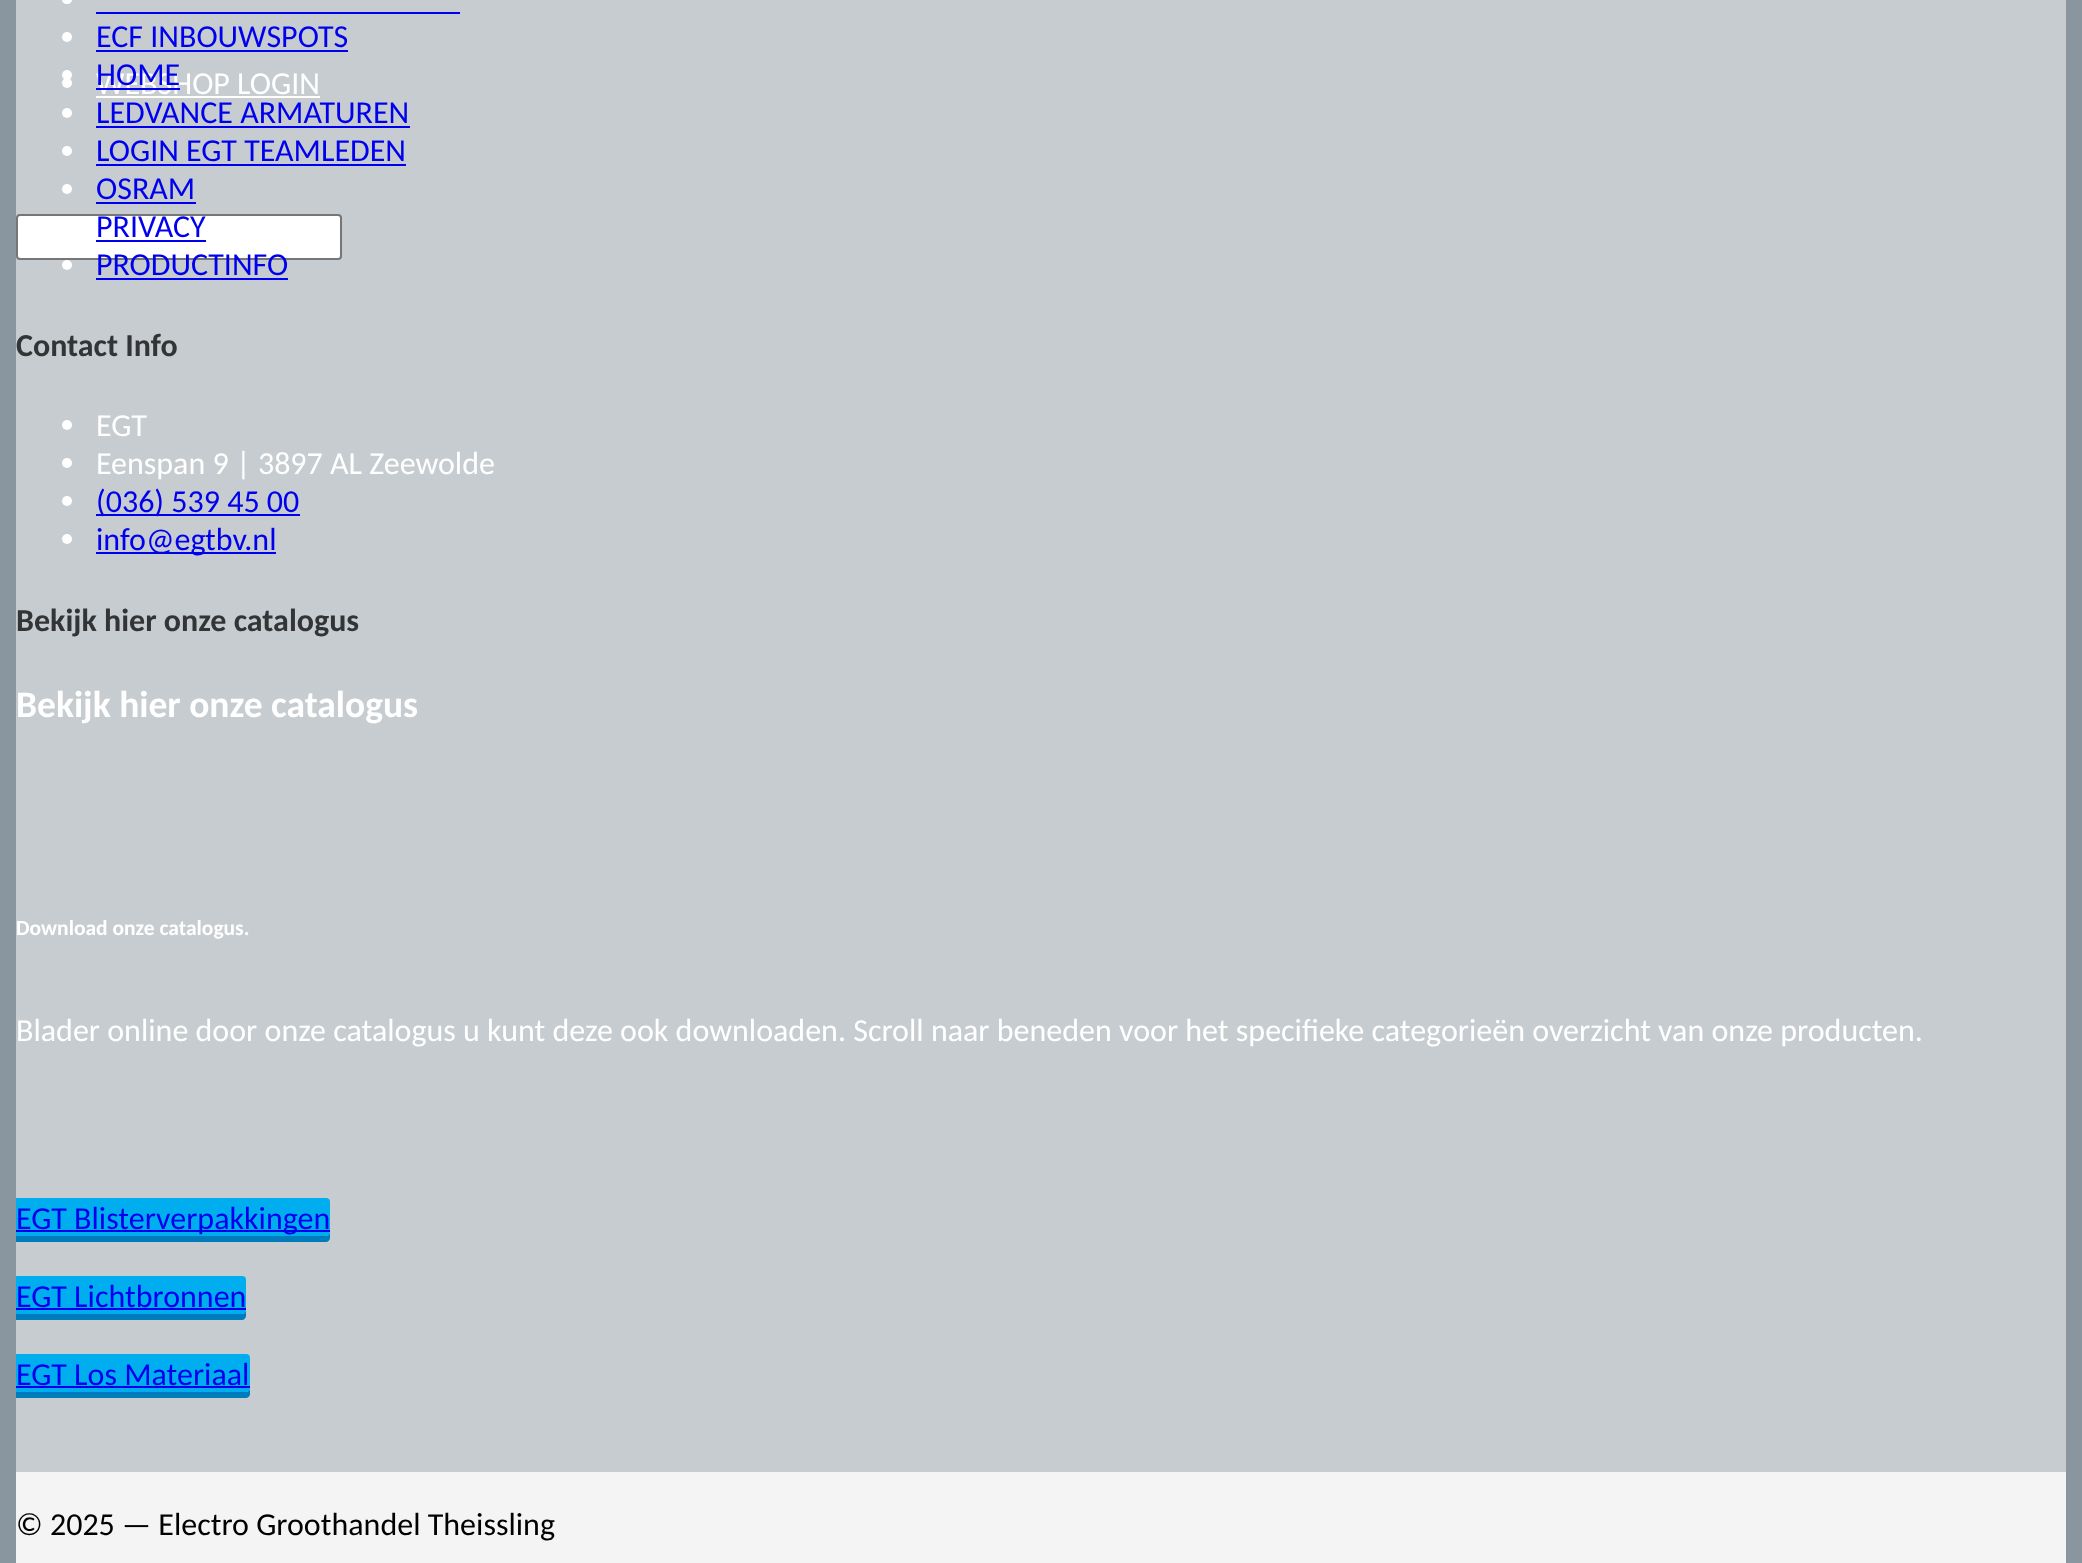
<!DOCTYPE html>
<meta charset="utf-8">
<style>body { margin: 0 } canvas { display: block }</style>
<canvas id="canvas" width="2082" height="1563"></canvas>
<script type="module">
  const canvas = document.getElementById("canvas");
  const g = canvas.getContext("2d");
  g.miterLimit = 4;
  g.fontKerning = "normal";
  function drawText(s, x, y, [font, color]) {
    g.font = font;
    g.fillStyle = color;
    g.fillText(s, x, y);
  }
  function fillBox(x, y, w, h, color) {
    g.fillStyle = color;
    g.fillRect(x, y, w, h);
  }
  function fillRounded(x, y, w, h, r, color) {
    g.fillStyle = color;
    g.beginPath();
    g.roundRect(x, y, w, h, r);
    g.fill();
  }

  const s1 = ["32px Carlito", "#0000EE"];
  const s2 = ["32px Carlito", "#FFFFFF"];
  const s3 = ["bold 32px Carlito", "#323436"];
  const s4 = ["bold 37.5px Carlito", "#FFFFFF"];
  const s5 = ["bold 21.5px Carlito", "#FFFFFF"];
  const s6 = ["32px Carlito", "#000000"];

  fillBox(0, 0, 2082, 1563, "#8A969F");
  fillBox(16, 1472, 2050, 91, "#F4F4F4");
  fillBox(16, 0, 2050, 1472, "#C6CCCF");
  fillRounded(62, -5, 10, 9, 5, "#FFFFFF");
  fillBox(96, 12, 364, 2, "#0000EE");
  g.fillStyle = "#FFFFFF";
  g.beginPath();
  g.arc(67, 37, 5, 0, Math.PI * 2);
  g.fill();
  drawText("ECF INBOUWSPOTS", 96, 47, s1);
  fillBox(96, 50, 252, 2, "#0000EE");
  g.fillStyle = "#FFFFFF";
  g.beginPath();
  g.arc(67, 83, 5, 0, Math.PI * 2);
  g.fill();
  g.beginPath();
  g.arc(67, 75, 5, 0, Math.PI * 2);
  g.fill();
  drawText("WEBSHOP LOGIN", 96, 94, s2);
  drawText("HOME", 96, 85, s1);
  fillBox(96, 88, 84, 2, "#0000EE");
  g.fillStyle = "#FFFFFF";
  g.beginPath();
  g.arc(67, 113, 5, 0, Math.PI * 2);
  g.fill();
  drawText("LEDVANCE ARMATUREN", 96, 123, s1);
  fillBox(96, 126, 314, 2, "#0000EE");
  g.fillStyle = "#FFFFFF";
  g.beginPath();
  g.arc(67, 151, 5, 0, Math.PI * 2);
  g.fill();
  drawText("LOGIN EGT TEAMLEDEN", 96, 161, s1);
  fillBox(96, 164, 310, 2, "#0000EE");
  g.fillStyle = "#FFFFFF";
  g.beginPath();
  g.arc(67, 189, 5, 0, Math.PI * 2);
  g.fill();
  drawText("OSRAM", 96, 199, s1);
  fillBox(96, 202, 100, 2, "#0000EE");
  g.fillStyle = "#FFFFFF";
  g.beginPath();
  g.roundRect(17, 215, 324, 44, 3);
  g.fill();
  g.strokeStyle = "#767676";
  g.lineWidth = 2;
  g.stroke();
  drawText("PRIVACY", 96, 237, s1);
  fillBox(96, 240, 110, 2, "#0000EE");
  g.fillStyle = "#FFFFFF";
  g.beginPath();
  g.arc(67, 265, 5, 0, Math.PI * 2);
  g.fill();
  drawText("PRODUCTINFO", 96, 275, s1);
  fillBox(96, 278, 192, 2, "#0000EE");
  drawText("Contact Info", 16, 356, s3);
  g.fillStyle = "#FFFFFF";
  g.beginPath();
  g.arc(67, 425, 5, 0, Math.PI * 2);
  g.fill();
  drawText("EGT", 96, 436, s2);
  g.beginPath();
  g.arc(67, 463, 5, 0, Math.PI * 2);
  g.fill();
  drawText("Eenspan 9 | 3897 AL Zeewolde", 96, 474, s2);
  g.beginPath();
  g.arc(67, 501, 5, 0, Math.PI * 2);
  g.fill();
  fillBox(96, 514, 204, 2, "#0000EE");
  drawText("(036) 539 45 00", 96, 512, s1);
  g.fillStyle = "#FFFFFF";
  g.beginPath();
  g.arc(67, 539, 5, 0, Math.PI * 2);
  g.fill();
  fillBox(96, 552, 180, 2, "#0000EE");
  drawText("info@egtbv.nl", 96, 550, s1);
  drawText("Bekijk hier onze catalogus", 16, 631, s3);
  drawText("Bekijk hier onze catalogus", 16, 717, s4);
  drawText("Download onze catalogus.", 16, 935, s5);
  drawText("Blader online door onze catalogus u kunt deze ook downloaden. Scroll naar beneden voor het specifieke categorieën overzicht van onze producten.", 16, 1041, s2);
  g.fillStyle = "#007CBD";
  g.beginPath();
  g.moveTo(16, 1236);
  g.lineTo(16, 1242);
  g.lineTo(326, 1242);
  g.bezierCurveTo(328, 1242, 330, 1240, 330, 1238);
  g.lineTo(330, 1232);
  g.bezierCurveTo(330, 1234, 328, 1236, 326, 1236);
  g.closePath();
  g.fill();
  g.fillStyle = "#00AEEF";
  g.beginPath();
  g.roundRect(16, 1198, 314, 38, [0, 4, 4, 0]);
  g.fill();
  fillBox(16, 1230, 314, 2, "#0000EE");
  drawText("EGT Blisterverpakkingen", 16, 1229, s1);
  g.fillStyle = "#007CBD";
  g.beginPath();
  g.moveTo(16, 1314);
  g.lineTo(16, 1320);
  g.lineTo(242, 1320);
  g.bezierCurveTo(244, 1320, 246, 1318, 246, 1316);
  g.lineTo(246, 1310);
  g.bezierCurveTo(246, 1312, 244, 1314, 242, 1314);
  g.closePath();
  g.fill();
  g.fillStyle = "#00AEEF";
  g.beginPath();
  g.roundRect(16, 1276, 230, 38, [0, 4, 4, 0]);
  g.fill();
  drawText("EGT Lichtbronnen", 16, 1307, s1);
  fillBox(16, 1308, 230, 2, "#0000EE");
  g.fillStyle = "#007CBD";
  g.beginPath();
  g.moveTo(16, 1392);
  g.lineTo(16, 1398);
  g.lineTo(246, 1398);
  g.bezierCurveTo(248, 1398, 250, 1396, 250, 1394);
  g.lineTo(250, 1388);
  g.bezierCurveTo(250, 1390, 248, 1392, 246, 1392);
  g.closePath();
  g.fill();
  g.fillStyle = "#00AEEF";
  g.beginPath();
  g.roundRect(16, 1354, 234, 38, [0, 4, 4, 0]);
  g.fill();
  drawText("EGT Los Materiaal", 16, 1385, s1);
  fillBox(16, 1386, 234, 2, "#0000EE");
  fillBox(96, 96, 224, 2, "#FFFFFF");
  drawText("© 2025 — Electro Groothandel Theissling", 16, 1535, s6);
</script>
